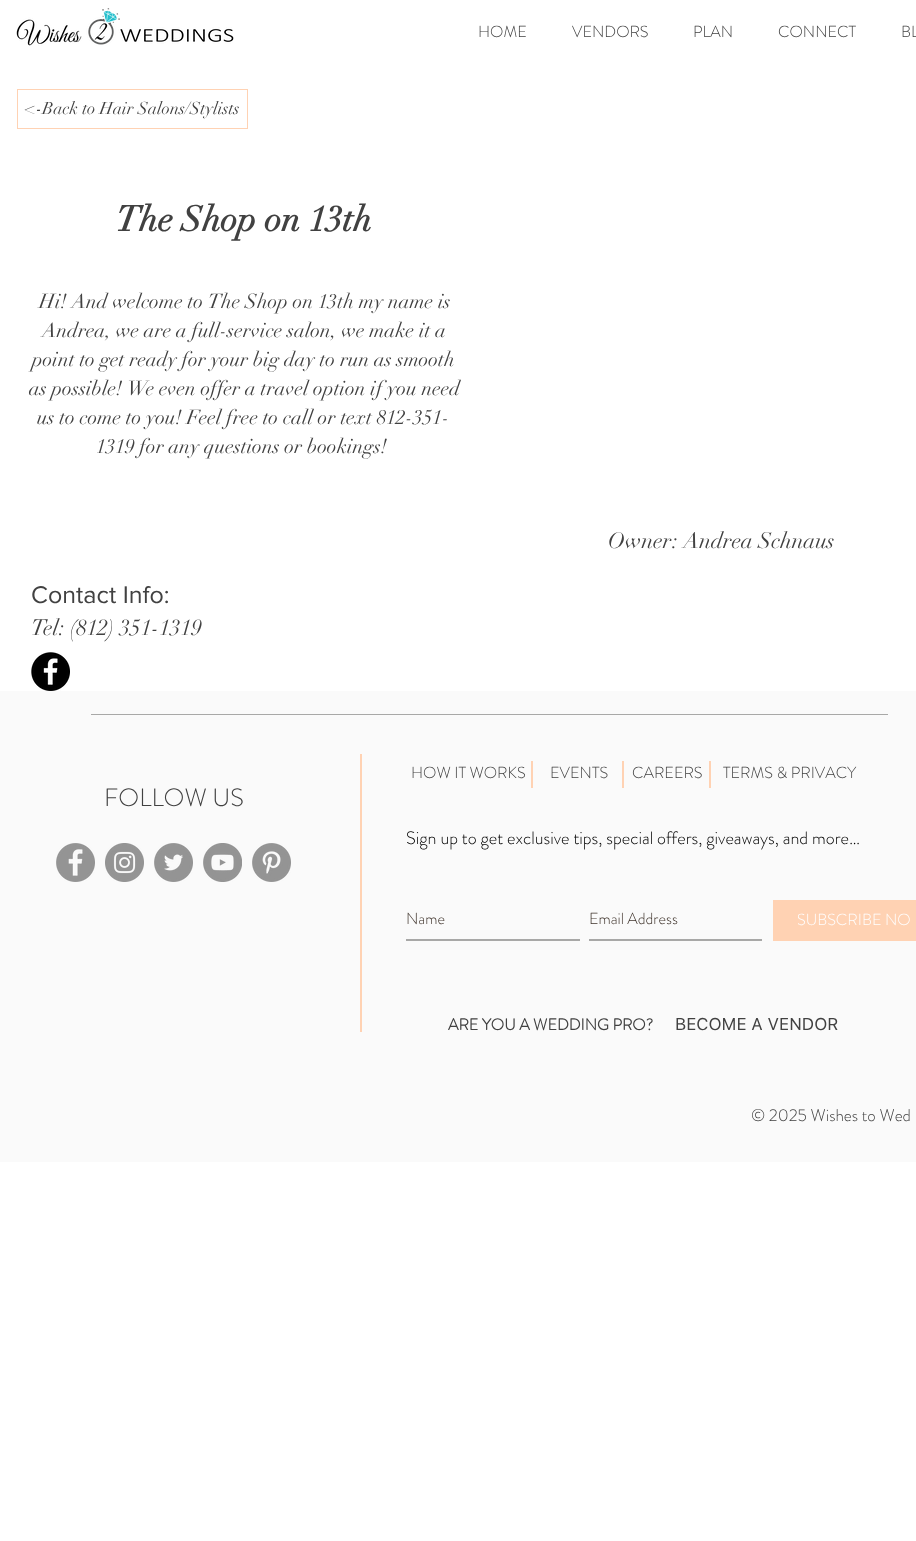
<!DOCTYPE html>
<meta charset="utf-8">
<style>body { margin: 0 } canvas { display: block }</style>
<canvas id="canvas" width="916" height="1541"></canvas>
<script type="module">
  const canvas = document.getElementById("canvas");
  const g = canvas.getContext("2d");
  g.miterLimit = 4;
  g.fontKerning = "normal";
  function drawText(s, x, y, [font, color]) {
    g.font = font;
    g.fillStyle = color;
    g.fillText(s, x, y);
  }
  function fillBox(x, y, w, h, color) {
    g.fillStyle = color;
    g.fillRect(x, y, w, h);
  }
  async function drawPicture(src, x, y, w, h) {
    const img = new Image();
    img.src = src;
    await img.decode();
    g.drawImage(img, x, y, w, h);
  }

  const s1 = ["300 16px 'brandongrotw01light'", "#414141"];
  const s2 = ["17px didot", "#414141"];
  const s3 = ["bold 35px didot", "#414141"];
  const s4 = ["20px didot", "#414141"];
  const s5 = ["25px 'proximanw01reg'", "#414141"];
  const s6 = ["22px didot", "#414141"];
  const s7 = ["300 25px 'brandongrotw01light'", "#414141"];
  const s8 = ["300 18px 'brandongrotw01light'", "#000000"];
  const s9 = ["300 16px 'brandongrotw01light'", "#40352D"];
  const s10 = ["300 16px 'brandongrotw01light'", "#FFFFFF"];
  const s11 = ["bold 16px 'brandongrotw01light'", "#414141"];
  const s12 = ["17px SF", "#414141"];
  const s13 = ["300 17px 'brandongrotw01light'", "#414141"];

  fillBox(0, 0, 916, 1541, "#FFFFFF");
  await drawPicture("pic1.png", 16, 8, 218, 38);
  drawText("HOME", 478, 37, s1);
  drawText("VENDORS", 572, 37, s1);
  drawText("PLAN", 693, 37, s1);
  drawText("CONNECT", 778, 37, s1);
  drawText("BL", 901, 37, s1);
  g.strokeStyle = "#FFD2B3";
  g.strokeRect(17.5, 89.5, 230, 39);
  drawText("<-Back to Hair Salons/Stylists", 26, 114, s2);
  drawText("The Shop on 13th", 116, 231, s3);
  drawText("Hi! And welcome to The Shop on 13th my name is", 39, 308, s4);
  drawText("Andrea, we are a full-service salon, we make it a", 42, 337, s4);
  drawText("point to get ready for your big day to run as smooth", 32, 366, s4);
  drawText("as possible! We even offer a travel option if you need", 29, 395, s4);
  drawText("us to come to you! Feel free to call or text 812-351-", 37, 424, s4);
  drawText("1319 for any questions or bookings!", 96, 453, s4);
  drawText("Contact Info:", 31, 603, s5);
  drawText("Tel: (812) 351-1319", 31, 635, s6);
  await drawPicture("pic2.png", 31, 652, 39, 39);
  drawText("Owner: Andrea Schnaus", 608, 548, s6);
  fillBox(0, 691, 916, 471, "#FAFAFA");
  fillBox(91, 714, 797, 1, "#A8A8A7");
  fillBox(360, 754, 2, 278, "#FFD2B3");
  drawText("HOW IT WORKS", 411, 778, s1);
  fillBox(531, 761, 2, 27, "#FFD2B3");
  drawText("EVENTS", 550, 778, s1);
  fillBox(622, 761, 2, 27, "#FFD2B3");
  drawText("CAREERS", 632, 778, s1);
  fillBox(709, 761, 2, 27, "#FFD2B3");
  drawText("TERMS & PRIVACY", 723, 778, s1);
  drawText("FOLLOW US", 104, 806, s7);
  await drawPicture("pic3.png", 56, 843, 39, 39);
  await drawPicture("pic4.png", 105, 843, 39, 39);
  await drawPicture("pic5.png", 154, 843, 39, 39);
  await drawPicture("pic6.png", 203, 843, 39, 39);
  await drawPicture("pic7.png", 252, 843, 39, 39);
  drawText("Sign up to get exclusive tips, special offers, giveaways, and more…", 406, 844, s8);
  fillBox(406, 939, 174, 2, "#A8A8A7");
  drawText("Name", 406, 924, s9);
  fillBox(589, 939, 173, 2, "#A8A8A7");
  drawText("Email Address", 589, 924, s9);
  fillBox(773, 900, 143, 41, "#FFD2B3");
  drawText("SUBSCRIBE NO", 797, 925, s10);
  drawText("ARE YOU A WEDDING PRO?", 448, 1030, s11);
  drawText("BECOME A VENDOR", 675, 1030, s12);
  drawText("© 2025 Wishes to Wed", 751, 1121, s13);
</script>
